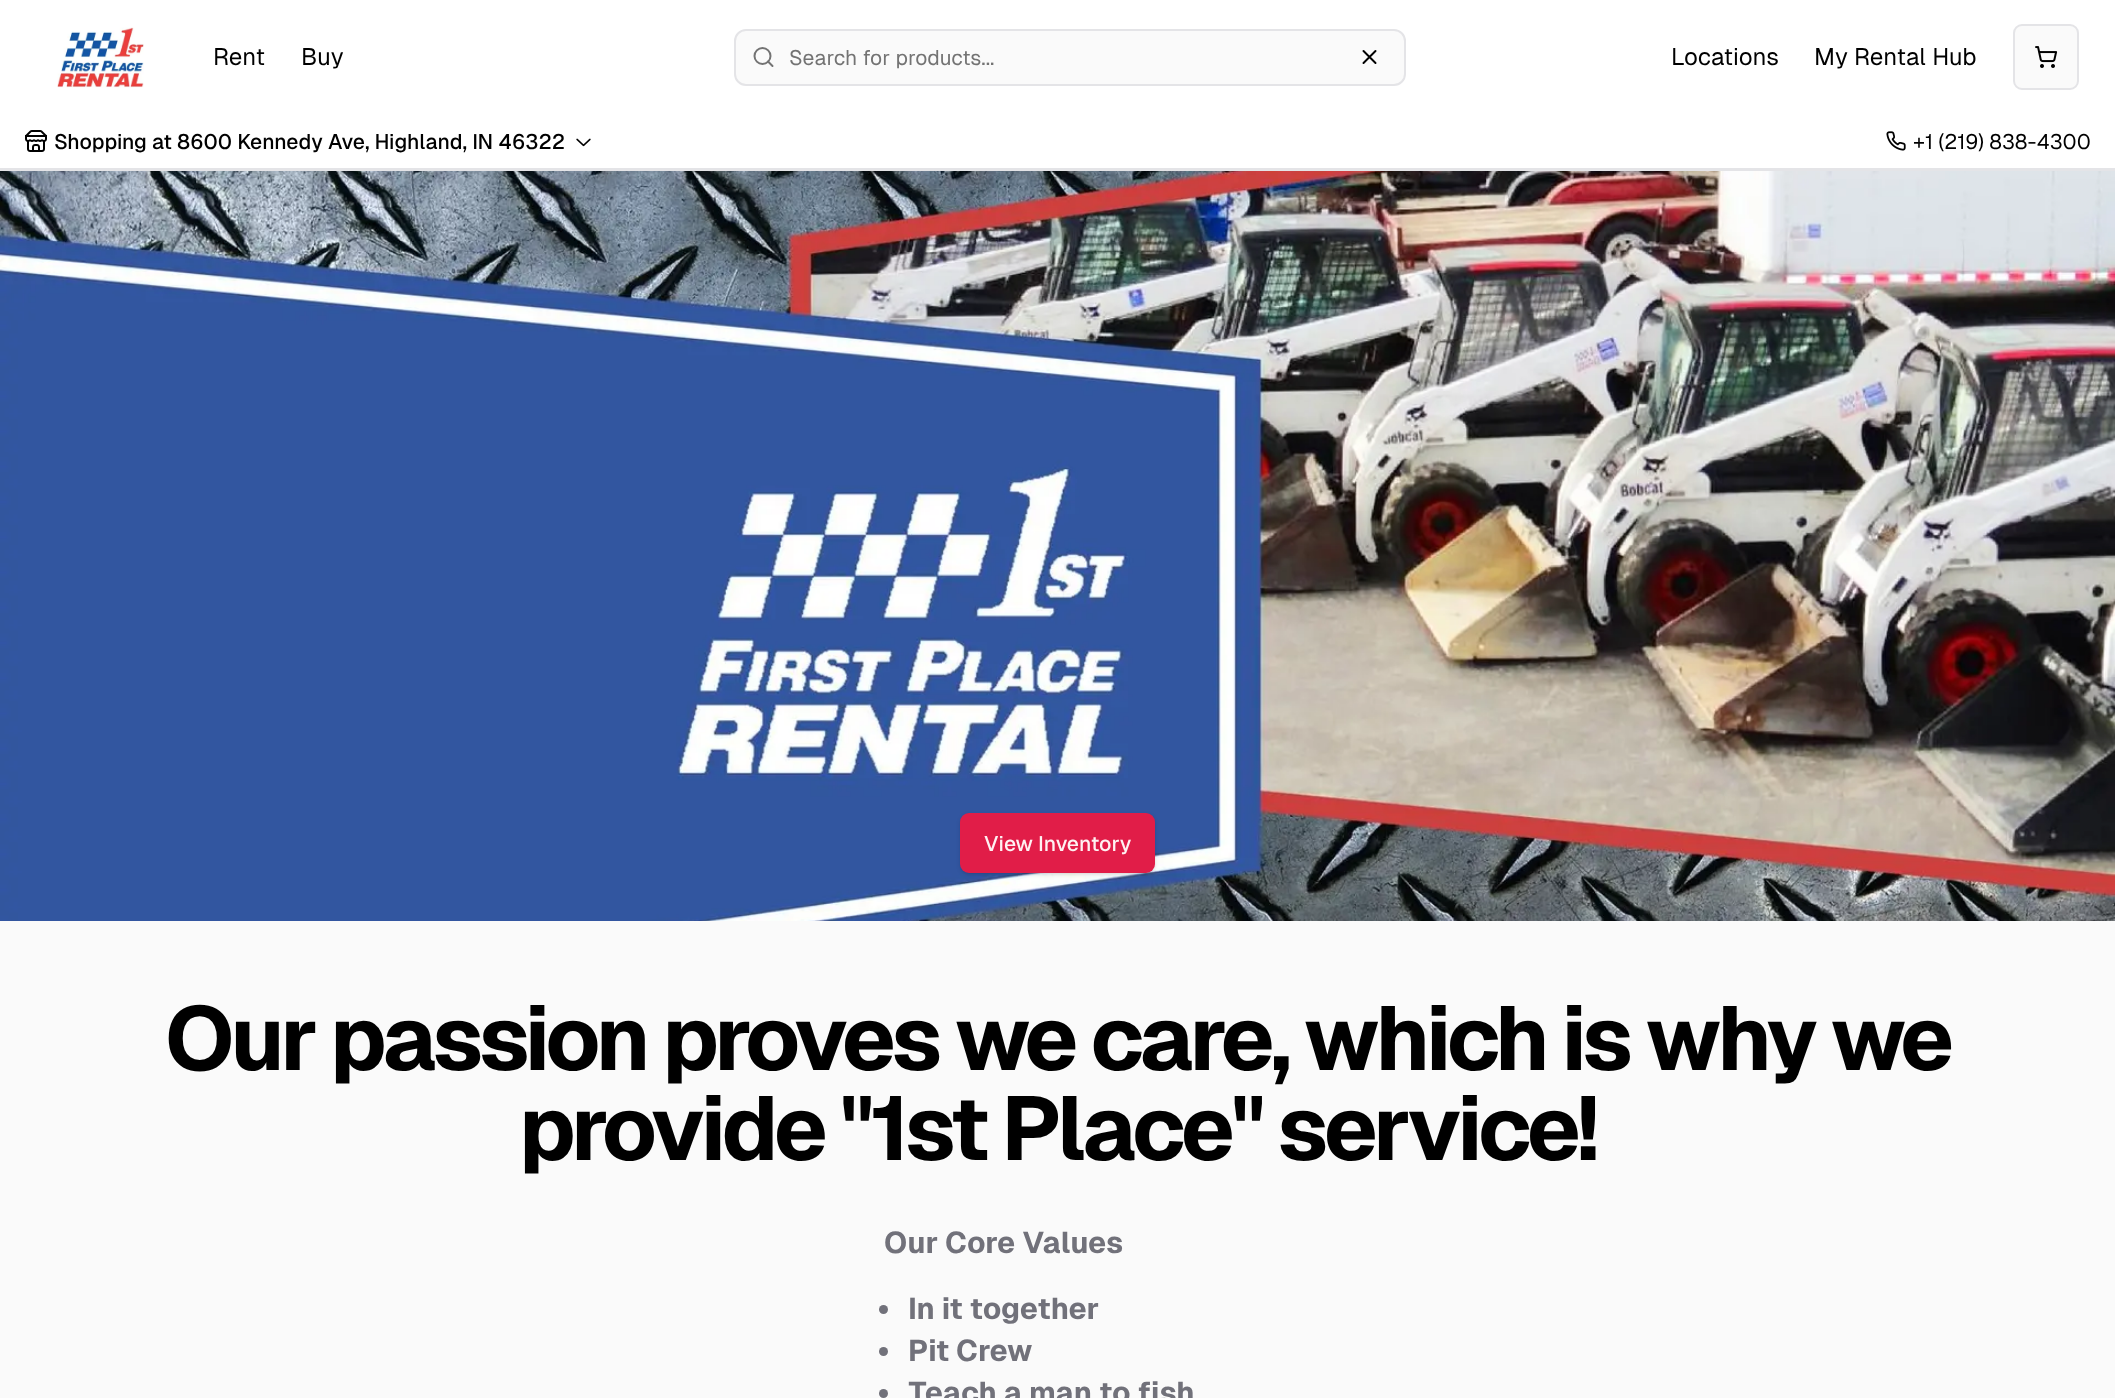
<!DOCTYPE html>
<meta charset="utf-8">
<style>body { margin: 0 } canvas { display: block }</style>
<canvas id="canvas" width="2115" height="1398"></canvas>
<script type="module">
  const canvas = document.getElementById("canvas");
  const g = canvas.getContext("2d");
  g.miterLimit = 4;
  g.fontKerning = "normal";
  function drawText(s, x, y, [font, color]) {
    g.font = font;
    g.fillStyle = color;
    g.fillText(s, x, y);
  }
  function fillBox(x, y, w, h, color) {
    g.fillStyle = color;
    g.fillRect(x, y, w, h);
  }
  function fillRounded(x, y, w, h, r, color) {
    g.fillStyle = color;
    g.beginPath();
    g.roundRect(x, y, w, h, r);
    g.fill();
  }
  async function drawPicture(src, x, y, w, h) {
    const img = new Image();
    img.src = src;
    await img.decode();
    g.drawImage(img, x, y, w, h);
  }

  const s1 = ["24px Geist", "#000000"];
  const s2 = ["21px Geist", "#737373"];
  const s3 = ["500 21px Geist", "#000000"];
  const s4 = ["21px Geist", "#000000"];
  const s5 = ["500 21px Geist", "#FFF1F2"];
  const s6 = ["bold 90px Geist", "#000000"];
  const s7 = ["bold 30px Geist", "#71717A"];

  fillBox(0, 0, 2115, 1398, "#FAFAFA");
  fillBox(0, 0, 2115, 168, "#FFFFFF");
  await drawPicture("pic1.png", 57, 27, 87, 61);
  drawText("Rent", 213, 65, s1);
  drawText("Buy", 301, 65, s1);
  g.fillStyle = "#FAFAFA";
  g.beginPath();
  g.roundRect(735, 30, 670, 55, 11);
  g.fill();
  g.strokeStyle = "#E4E4E7";
  g.lineWidth = 2;
  g.stroke();
  g.beginPath();
  g.arc(762.5, 56, 8, 0, Math.PI * 2);
  g.strokeStyle = "#737373";
  g.stroke();
  g.beginPath();
  g.moveTo(772.5, 66);
  g.lineTo(768, 61.5);
  g.lineCap = "round";
  g.lineJoin = "round";
  g.stroke();
  drawText("Search for products...", 789, 65, s2);
  g.beginPath();
  g.moveTo(1375.5, 51);
  g.lineTo(1363.5, 63);
  g.moveTo(1363.5, 51);
  g.lineTo(1375.5, 63);
  g.strokeStyle = "#000000";
  g.stroke();
  drawText("Locations", 1671, 65, s1);
  drawText("My Rental Hub", 1814, 65, s1);
  g.fillStyle = "#FAFAFA";
  g.beginPath();
  g.roundRect(2014, 25, 64, 64, 8);
  g.fill();
  g.strokeStyle = "#E4E4E7";
  g.lineJoin = "miter";
  g.stroke();
  await drawPicture("pic2.png", 2035, 46, 23, 22);
  fillBox(0, 168, 2115, 3, "#E4E4E7");
  await drawPicture("pic3.png", 25, 130, 22, 22);
  drawText("Shopping at 8600 Kennedy Ave, Highland, IN 46322", 54, 149, s3);
  await drawPicture("pic4.png", 576, 138, 15, 9);
  await drawPicture("pic5.png", 1886, 131, 20, 20);
  drawText("+1 (219) 838-4300", 1913, 149, s4);
  await drawPicture("pic6.png", 0, 171, 2115, 750);
  g.fillStyle = "rgba(0, 0, 0, 0.1)";
  g.filter = "blur(1.5px)";
  g.beginPath();
  g.roundRect(962, 816, 192, 57, 8);
  g.fill();
  g.filter = "none";
  g.filter = "blur(2px)";
  g.beginPath();
  g.roundRect(960, 815, 195, 60, 9);
  g.fill();
  g.filter = "none";
  fillRounded(960, 813, 195, 60, 9, "#E11D48");
  drawText("View Inventory", 984, 851, s5);
  g.letterSpacing = "-4.5px";
  drawText("Our passion proves we care, which is why we", 165, 1070, s6);
  drawText("provide \"1st Place\" service!", 519, 1160, s6);
  g.letterSpacing = "0px";
  drawText("Our Core Values", 884, 1253, s7);
  g.beginPath();
  g.arc(883.5, 1309.5, 4.5, 0, Math.PI * 2);
  g.fill();
  drawText("In it together", 908, 1319, s7);
  g.beginPath();
  g.arc(883.5, 1351.5, 4.5, 0, Math.PI * 2);
  g.fill();
  drawText("Pit Crew", 908, 1361, s7);
  g.beginPath();
  g.arc(883.5, 1393.5, 4.5, 0, Math.PI * 2);
  g.fill();
  drawText("Teach a man to fish", 908, 1403, s7);
</script>
